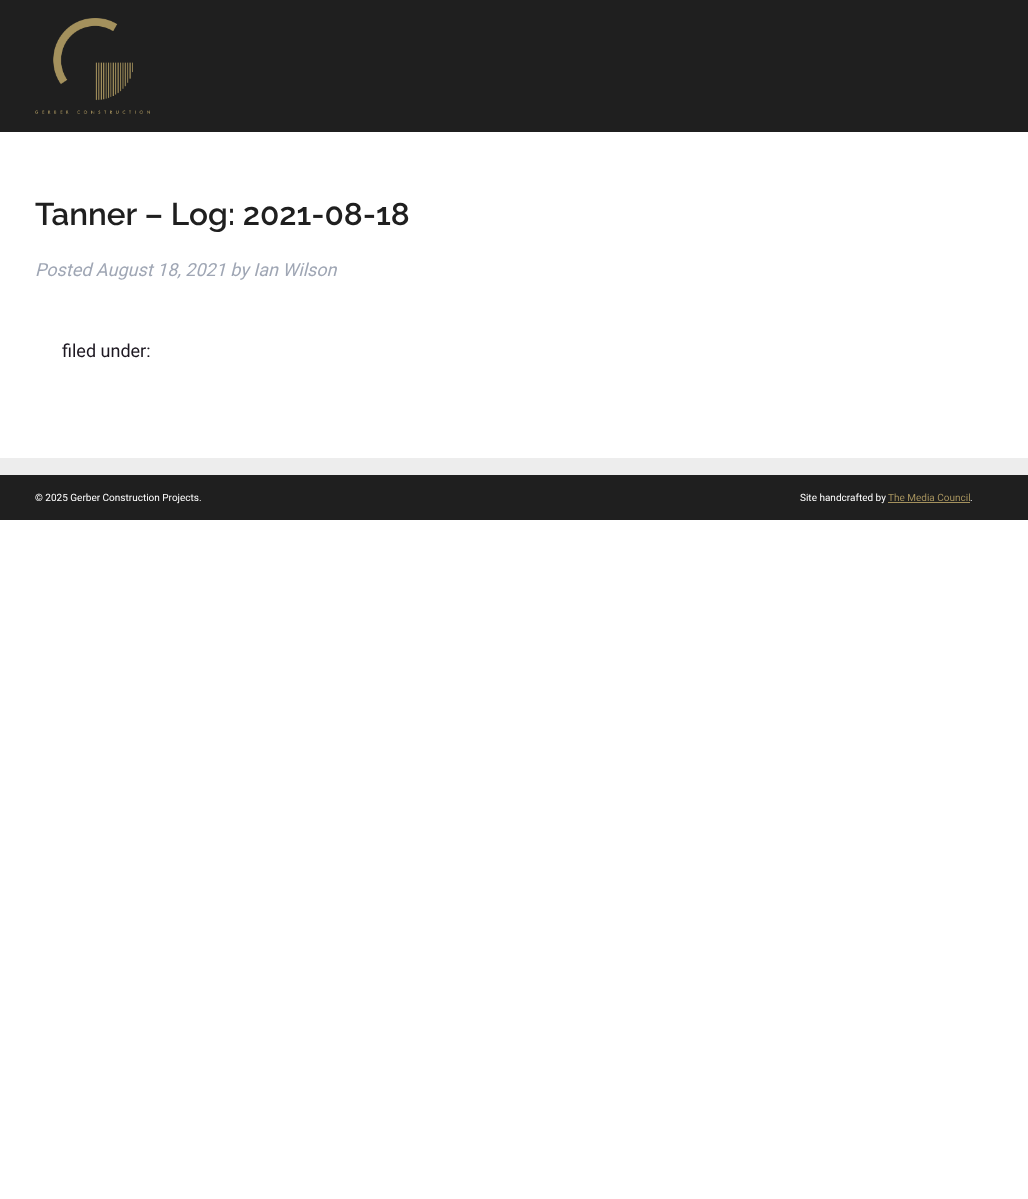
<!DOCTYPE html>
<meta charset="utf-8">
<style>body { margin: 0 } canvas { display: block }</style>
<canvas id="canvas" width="1028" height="1199"></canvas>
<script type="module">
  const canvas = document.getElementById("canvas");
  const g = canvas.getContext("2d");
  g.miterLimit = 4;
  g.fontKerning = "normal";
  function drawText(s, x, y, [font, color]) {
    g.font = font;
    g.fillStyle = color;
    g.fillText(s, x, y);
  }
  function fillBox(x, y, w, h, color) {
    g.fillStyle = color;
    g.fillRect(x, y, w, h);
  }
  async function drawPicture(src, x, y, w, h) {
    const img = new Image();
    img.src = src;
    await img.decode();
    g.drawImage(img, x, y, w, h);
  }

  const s1 = ["600 31.5px Raleway", "#1F1F1F"];
  const s2 = ["italic 18px Roboto", "#9FA6B4"];
  const s3 = ["18px Roboto", "#1C1720"];
  const s4 = ["10px Roboto", "#FFFFFF"];
  const s5 = ["10px Roboto", "#A4915D"];

  fillBox(0, 0, 1028, 1199, "#FFFFFF");
  fillBox(0, 0, 1028, 132, "#1F1F1F");
  await drawPicture("pic1.png", 35, 18, 115, 96);
  drawText("Tanner – Log: 2021-08-18", 35, 225, s1);
  drawText("Posted August 18, 2021 by Ian Wilson", 35, 276, s2);
  drawText("filed under:", 62, 357, s3);
  fillBox(0, 475, 1028, 45, "#1F1F1F");
  fillBox(0, 458, 1028, 17, "#EDEDED");
  drawText("© 2025 Gerber Construction Projects.", 35, 501, s4);
  drawText("Site handcrafted by", 800, 501, s4);
  drawText("The Media Council", 888, 501, s5);
  fillBox(888, 502, 82, 1, "#A4915D");
  drawText(".", 970, 501, s4);
</script>
